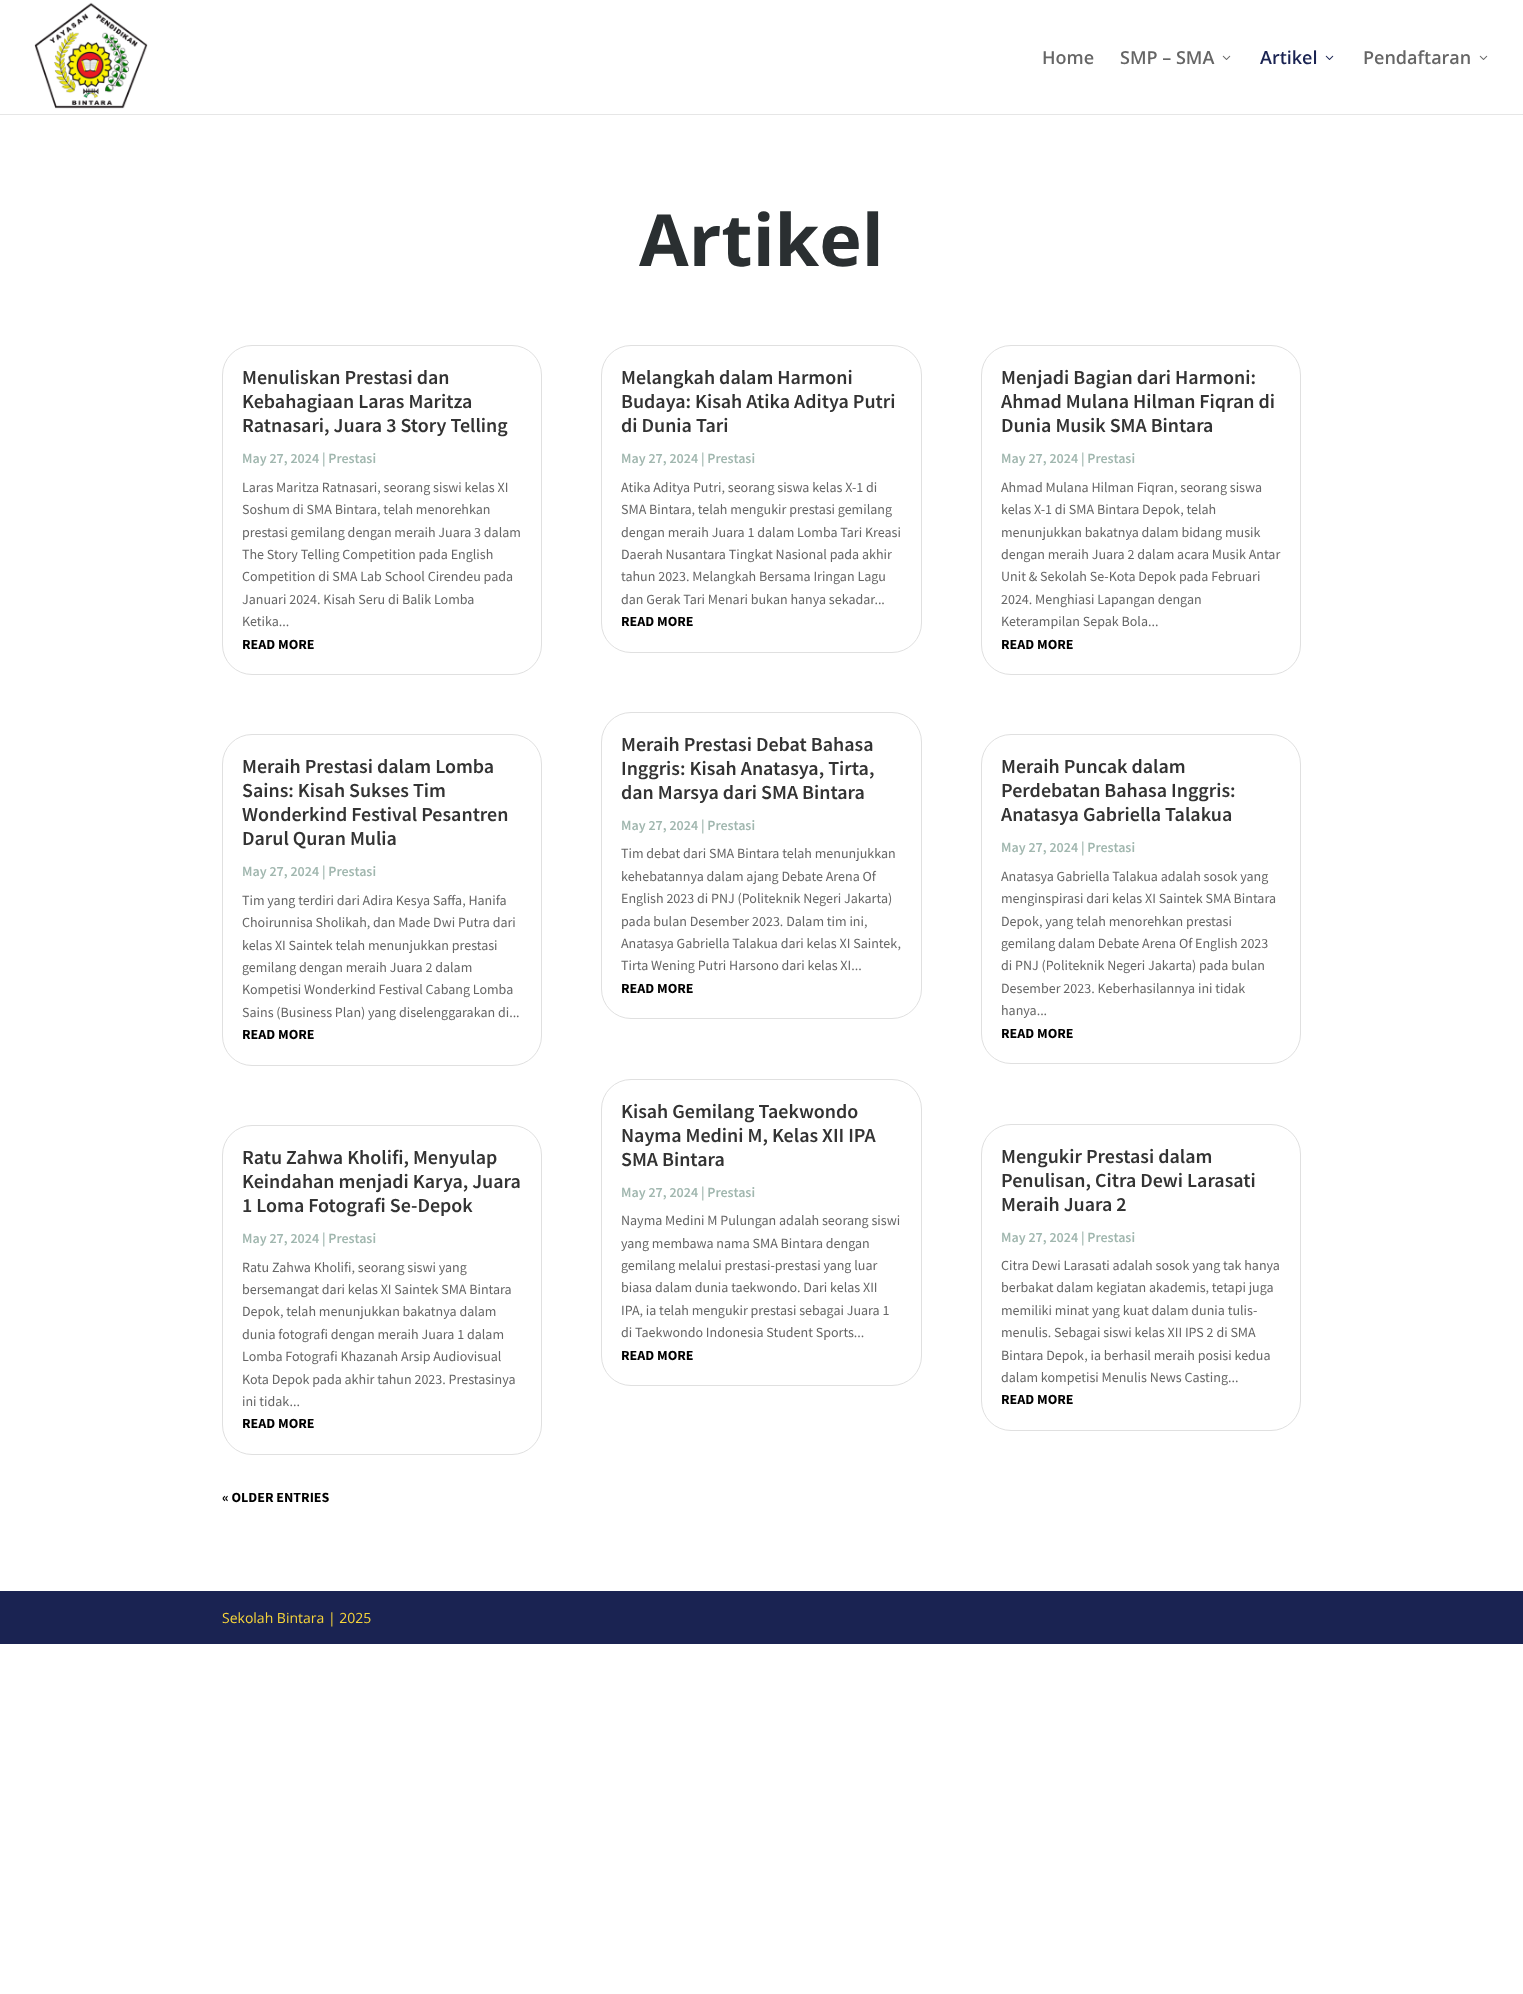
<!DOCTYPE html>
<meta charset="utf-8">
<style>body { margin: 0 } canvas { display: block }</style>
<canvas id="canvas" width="1523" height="1994"></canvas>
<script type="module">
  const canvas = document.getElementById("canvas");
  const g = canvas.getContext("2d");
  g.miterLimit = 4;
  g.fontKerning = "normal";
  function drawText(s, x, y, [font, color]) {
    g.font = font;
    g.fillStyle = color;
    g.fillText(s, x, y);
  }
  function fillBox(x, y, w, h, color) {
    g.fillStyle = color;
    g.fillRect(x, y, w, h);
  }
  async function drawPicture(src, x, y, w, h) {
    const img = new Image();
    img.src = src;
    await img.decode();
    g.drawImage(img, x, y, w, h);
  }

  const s1 = ["600 18px Open Sans", "#666666"];
  const s2 = ["600 18px Open Sans", "#1A2352"];
  const s3 = ["bold 72px Open Sans", "#2A2F31"];
  const s4 = ["600 20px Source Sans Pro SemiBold", "#333333"];
  const s5 = ["600 14px Source Sans Pro SemiBold", "#A1B7AF"];
  const s6 = ["14px Source Sans Pro", "#666666"];
  const s7 = ["bold 14px Source Sans Pro", "#000000"];
  const s8 = ["14px Open Sans", "#F7D53A"];

  fillBox(0, 0, 1523, 1994, "#FFFFFF");
  fillBox(0, 114, 1523, 1, "#E6E6E6");
  await drawPicture("pic1.png", 34, 2, 114, 107);
  drawText("Home", 1042, 64, s1);
  drawText("SMP – SMA", 1120, 64, s1);
  await drawPicture("pic2.png", 1222, 55, 9, 5);
  drawText("Artikel", 1260, 64, s2);
  await drawPicture("pic3.png", 1325, 55, 9, 5);
  drawText("Pendaftaran", 1363, 64, s1);
  await drawPicture("pic2.png", 1479, 55, 9, 5);
  drawText("Artikel", 639, 266, s3);
  g.beginPath();
  g.roundRect(222.5, 345.5, 319, 329, 29.5);
  g.strokeStyle = "#E0E0E0";
  g.stroke();
  drawText("Menuliskan Prestasi dan", 242, 384, s4);
  drawText("Kebahagiaan Laras Maritza", 242, 408, s4);
  drawText("Ratnasari, Juara 3 Story Telling", 242, 432, s4);
  drawText("May 27, 2024 | Prestasi", 242, 463, s5);
  drawText("Laras Maritza Ratnasari, seorang siswi kelas XI", 242, 492, s6);
  drawText("Soshum di SMA Bintara, telah menorehkan", 242, 514, s6);
  drawText("prestasi gemilang dengan meraih Juara 3 dalam", 242, 537, s6);
  drawText("The Story Telling Competition pada English", 242, 559, s6);
  drawText("Competition di SMA Lab School Cirendeu pada", 242, 581, s6);
  drawText("Januari 2024. Kisah Seru di Balik Lomba", 242, 604, s6);
  drawText("Ketika...", 242, 626, s6);
  drawText("READ MORE", 242, 649, s7);
  g.beginPath();
  g.roundRect(222.5, 734.5, 319, 331, 29.5);
  g.stroke();
  drawText("Meraih Prestasi dalam Lomba", 242, 773, s4);
  drawText("Sains: Kisah Sukses Tim", 242, 797, s4);
  drawText("Wonderkind Festival Pesantren", 242, 821, s4);
  drawText("Darul Quran Mulia", 242, 845, s4);
  drawText("May 27, 2024 | Prestasi", 242, 876, s5);
  drawText("Tim yang terdiri dari Adira Kesya Saffa, Hanifa", 242, 905, s6);
  drawText("Choirunnisa Sholikah, dan Made Dwi Putra dari", 242, 927, s6);
  drawText("kelas XI Saintek telah menunjukkan prestasi", 242, 950, s6);
  drawText("gemilang dengan meraih Juara 2 dalam", 242, 972, s6);
  drawText("Kompetisi Wonderkind Festival Cabang Lomba", 242, 994, s6);
  drawText("Sains (Business Plan) yang diselenggarakan di...", 242, 1017, s6);
  drawText("READ MORE", 242, 1039, s7);
  g.beginPath();
  g.roundRect(222.5, 1125.5, 319, 329, 29.5);
  g.stroke();
  drawText("Ratu Zahwa Kholifi, Menyulap", 242, 1164, s4);
  drawText("Keindahan menjadi Karya, Juara", 242, 1188, s4);
  drawText("1 Loma Fotografi Se-Depok", 242, 1212, s4);
  drawText("May 27, 2024 | Prestasi", 242, 1243, s5);
  drawText("Ratu Zahwa Kholifi, seorang siswi yang", 242, 1272, s6);
  drawText("bersemangat dari kelas XI Saintek SMA Bintara", 242, 1294, s6);
  drawText("Depok, telah menunjukkan bakatnya dalam", 242, 1316, s6);
  drawText("dunia fotografi dengan meraih Juara 1 dalam", 242, 1339, s6);
  drawText("Lomba Fotografi Khazanah Arsip Audiovisual", 242, 1361, s6);
  drawText("Kota Depok pada akhir tahun 2023. Prestasinya", 242, 1384, s6);
  drawText("ini tidak...", 242, 1406, s6);
  drawText("READ MORE", 242, 1428, s7);
  g.beginPath();
  g.roundRect(601.5, 345.5, 320, 307, 29.5);
  g.stroke();
  drawText("Melangkah dalam Harmoni", 621, 384, s4);
  drawText("Budaya: Kisah Atika Aditya Putri", 621, 408, s4);
  drawText("di Dunia Tari", 621, 432, s4);
  drawText("May 27, 2024 | Prestasi", 621, 463, s5);
  drawText("Atika Aditya Putri, seorang siswa kelas X-1 di", 621, 492, s6);
  drawText("SMA Bintara, telah mengukir prestasi gemilang", 621, 514, s6);
  drawText("dengan meraih Juara 1 dalam Lomba Tari Kreasi", 621, 537, s6);
  drawText("Daerah Nusantara Tingkat Nasional pada akhir", 621, 559, s6);
  drawText("tahun 2023. Melangkah Bersama Iringan Lagu", 621, 581, s6);
  drawText("dan Gerak Tari Menari bukan hanya sekadar...", 621, 604, s6);
  drawText("READ MORE", 621, 626, s7);
  g.beginPath();
  g.roundRect(601.5, 712.5, 320, 306, 29.5);
  g.stroke();
  drawText("Meraih Prestasi Debat Bahasa", 621, 751, s4);
  drawText("Inggris: Kisah Anatasya, Tirta,", 621, 775, s4);
  drawText("dan Marsya dari SMA Bintara", 621, 799, s4);
  drawText("May 27, 2024 | Prestasi", 621, 830, s5);
  drawText("Tim debat dari SMA Bintara telah menunjukkan", 621, 858, s6);
  drawText("kehebatannya dalam ajang Debate Arena Of", 621, 881, s6);
  drawText("English 2023 di PNJ (Politeknik Negeri Jakarta)", 621, 903, s6);
  drawText("pada bulan Desember 2023. Dalam tim ini,", 621, 926, s6);
  drawText("Anatasya Gabriella Talakua dari kelas XI Saintek,", 621, 948, s6);
  drawText("Tirta Wening Putri Harsono dari kelas XI...", 621, 970, s6);
  drawText("READ MORE", 621, 993, s7);
  g.beginPath();
  g.roundRect(601.5, 1079.5, 320, 306, 29.5);
  g.stroke();
  drawText("Kisah Gemilang Taekwondo", 621, 1118, s4);
  drawText("Nayma Medini M, Kelas XII IPA", 621, 1142, s4);
  drawText("SMA Bintara", 621, 1166, s4);
  drawText("May 27, 2024 | Prestasi", 621, 1197, s5);
  drawText("Nayma Medini M Pulungan adalah seorang siswi", 621, 1225, s6);
  drawText("yang membawa nama SMA Bintara dengan", 621, 1248, s6);
  drawText("gemilang melalui prestasi-prestasi yang luar", 621, 1270, s6);
  drawText("biasa dalam dunia taekwondo. Dari kelas XII", 621, 1292, s6);
  drawText("IPA, ia telah mengukir prestasi sebagai Juara 1", 621, 1315, s6);
  drawText("di Taekwondo Indonesia Student Sports...", 621, 1337, s6);
  drawText("READ MORE", 621, 1360, s7);
  g.beginPath();
  g.roundRect(981.5, 345.5, 319, 329, 29.5);
  g.stroke();
  drawText("Menjadi Bagian dari Harmoni:", 1001, 384, s4);
  drawText("Ahmad Mulana Hilman Fiqran di", 1001, 408, s4);
  drawText("Dunia Musik SMA Bintara", 1001, 432, s4);
  drawText("May 27, 2024 | Prestasi", 1001, 463, s5);
  drawText("Ahmad Mulana Hilman Fiqran, seorang siswa", 1001, 492, s6);
  drawText("kelas X-1 di SMA Bintara Depok, telah", 1001, 514, s6);
  drawText("menunjukkan bakatnya dalam bidang musik", 1001, 537, s6);
  drawText("dengan meraih Juara 2 dalam acara Musik Antar", 1001, 559, s6);
  drawText("Unit & Sekolah Se-Kota Depok pada Februari", 1001, 581, s6);
  drawText("2024. Menghiasi Lapangan dengan", 1001, 604, s6);
  drawText("Keterampilan Sepak Bola...", 1001, 626, s6);
  drawText("READ MORE", 1001, 649, s7);
  g.beginPath();
  g.roundRect(981.5, 734.5, 319, 329, 29.5);
  g.stroke();
  drawText("Meraih Puncak dalam", 1001, 773, s4);
  drawText("Perdebatan Bahasa Inggris:", 1001, 797, s4);
  drawText("Anatasya Gabriella Talakua", 1001, 821, s4);
  drawText("May 27, 2024 | Prestasi", 1001, 852, s5);
  drawText("Anatasya Gabriella Talakua adalah sosok yang", 1001, 881, s6);
  drawText("menginspirasi dari kelas XI Saintek SMA Bintara", 1001, 903, s6);
  drawText("Depok, yang telah menorehkan prestasi", 1001, 926, s6);
  drawText("gemilang dalam Debate Arena Of English 2023", 1001, 948, s6);
  drawText("di PNJ (Politeknik Negeri Jakarta) pada bulan", 1001, 970, s6);
  drawText("Desember 2023. Keberhasilannya ini tidak", 1001, 993, s6);
  drawText("hanya...", 1001, 1015, s6);
  drawText("READ MORE", 1001, 1038, s7);
  g.beginPath();
  g.roundRect(981.5, 1124.5, 319, 306, 29.5);
  g.stroke();
  drawText("Mengukir Prestasi dalam", 1001, 1163, s4);
  drawText("Penulisan, Citra Dewi Larasati", 1001, 1187, s4);
  drawText("Meraih Juara 2", 1001, 1211, s4);
  drawText("May 27, 2024 | Prestasi", 1001, 1242, s5);
  drawText("Citra Dewi Larasati adalah sosok yang tak hanya", 1001, 1270, s6);
  drawText("berbakat dalam kegiatan akademis, tetapi juga", 1001, 1292, s6);
  drawText("memiliki minat yang kuat dalam dunia tulis-", 1001, 1315, s6);
  drawText("menulis. Sebagai siswi kelas XII IPS 2 di SMA", 1001, 1337, s6);
  drawText("Bintara Depok, ia berhasil meraih posisi kedua", 1001, 1360, s6);
  drawText("dalam kompetisi Menulis News Casting...", 1001, 1382, s6);
  drawText("READ MORE", 1001, 1404, s7);
  drawText("« OLDER ENTRIES", 222, 1502, s7);
  fillBox(0, 1591, 1523, 53, "#1A2352");
  drawText("Sekolah Bintara | 2025", 222, 1623, s8);
</script>
